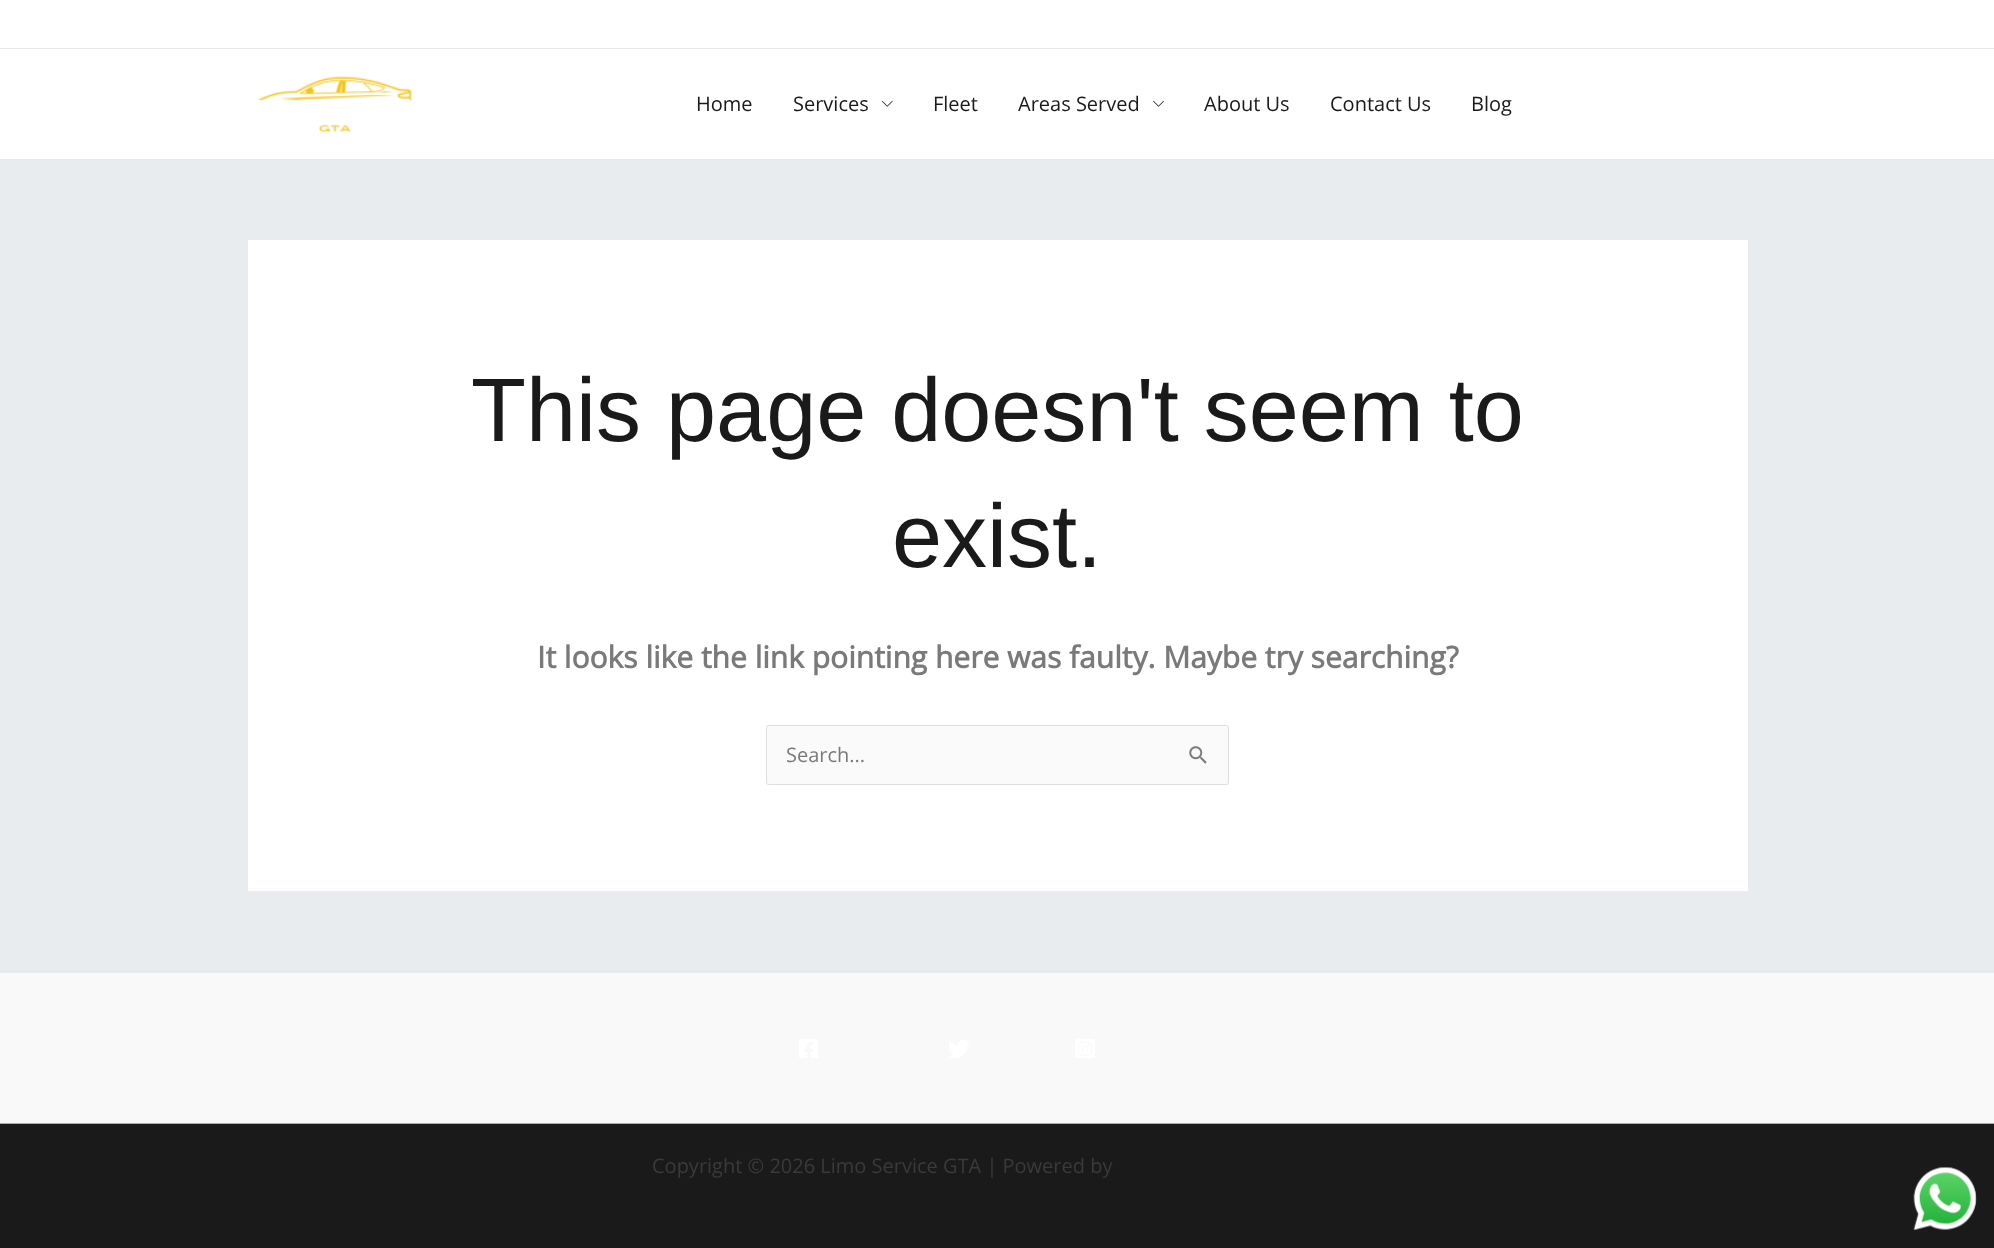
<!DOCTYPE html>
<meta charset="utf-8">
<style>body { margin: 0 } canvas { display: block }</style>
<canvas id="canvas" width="1994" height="1248"></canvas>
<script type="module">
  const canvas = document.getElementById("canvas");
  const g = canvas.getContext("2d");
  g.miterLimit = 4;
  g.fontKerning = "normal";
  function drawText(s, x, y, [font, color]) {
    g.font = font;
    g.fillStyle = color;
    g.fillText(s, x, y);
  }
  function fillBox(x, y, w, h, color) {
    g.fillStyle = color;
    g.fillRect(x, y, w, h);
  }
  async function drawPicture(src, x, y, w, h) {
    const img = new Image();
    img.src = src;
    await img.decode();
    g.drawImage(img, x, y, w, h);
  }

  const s1 = ["20px Open Sans", "#1A1A1A"];
  const s2 = ["90px Liberation Sans", "#1A1A1A"];
  const s3 = ["bold 30px Open Sans", "#7A7A7A"];
  const s4 = ["20px Open Sans", "#7A7A7A"];
  const s5 = ["20px Open Sans", "#3A3A3A"];

  fillBox(0, 0, 1994, 1248, "#E9ECEF");
  fillBox(0, 0, 1994, 48, "#FFFFFF");
  fillBox(0, 48, 1994, 1, "#EAEAEA");
  fillBox(0, 49, 1994, 110, "#FFFFFF");
  fillBox(0, 159, 1994, 1, "#EAEAEA");
  await drawPicture("pic1.png", 257, 76, 156, 57);
  drawText("Home", 696, 111, s1);
  drawText("Services", 793, 111, s1);
  await drawPicture("pic2.png", 881, 100, 12, 7);
  drawText("Fleet", 933, 111, s1);
  drawText("Areas Served", 1018, 111, s1);
  await drawPicture("pic3.png", 1153, 100, 11, 7);
  drawText("About Us", 1204, 111, s1);
  drawText("Contact Us", 1330, 111, s1);
  drawText("Blog", 1471, 111, s1);
  fillBox(248, 240, 1500, 651, "#FFFFFF");
  drawText("This page doesn't seem to", 471, 441, s2);
  drawText("exist.", 892, 567, s2);
  drawText("It looks like the link pointing here was faulty. Maybe try searching?", 537, 668, s3);
  g.fillStyle = "#FAFAFA";
  g.beginPath();
  g.roundRect(766.5, 725.5, 462, 59, 2);
  g.fill();
  g.strokeStyle = "#DDDDDD";
  g.stroke();
  drawText("Search...", 786, 762, s4);
  await drawPicture("pic4.png", 1189, 746, 18, 18);
  fillBox(0, 973, 1994, 150, "#F9F9F9");
  fillBox(0, 971, 1994, 1, "#E6E6E6");
  await drawPicture("pic5.png", 799, 1039, 19, 19);
  await drawPicture("pic6.png", 949, 1040, 20, 18);
  await drawPicture("pic7.png", 1075, 1039, 20, 19);
  fillBox(0, 1124, 1994, 124, "#1A1A1A");
  fillBox(0, 1123, 1994, 1, "#AAAAAA");
  drawText("Copyright © 2026 Limo Service GTA | Powered by", 652, 1173, s5);
  await drawPicture("pic8.png", 1913, 1167, 64, 64);
</script>
